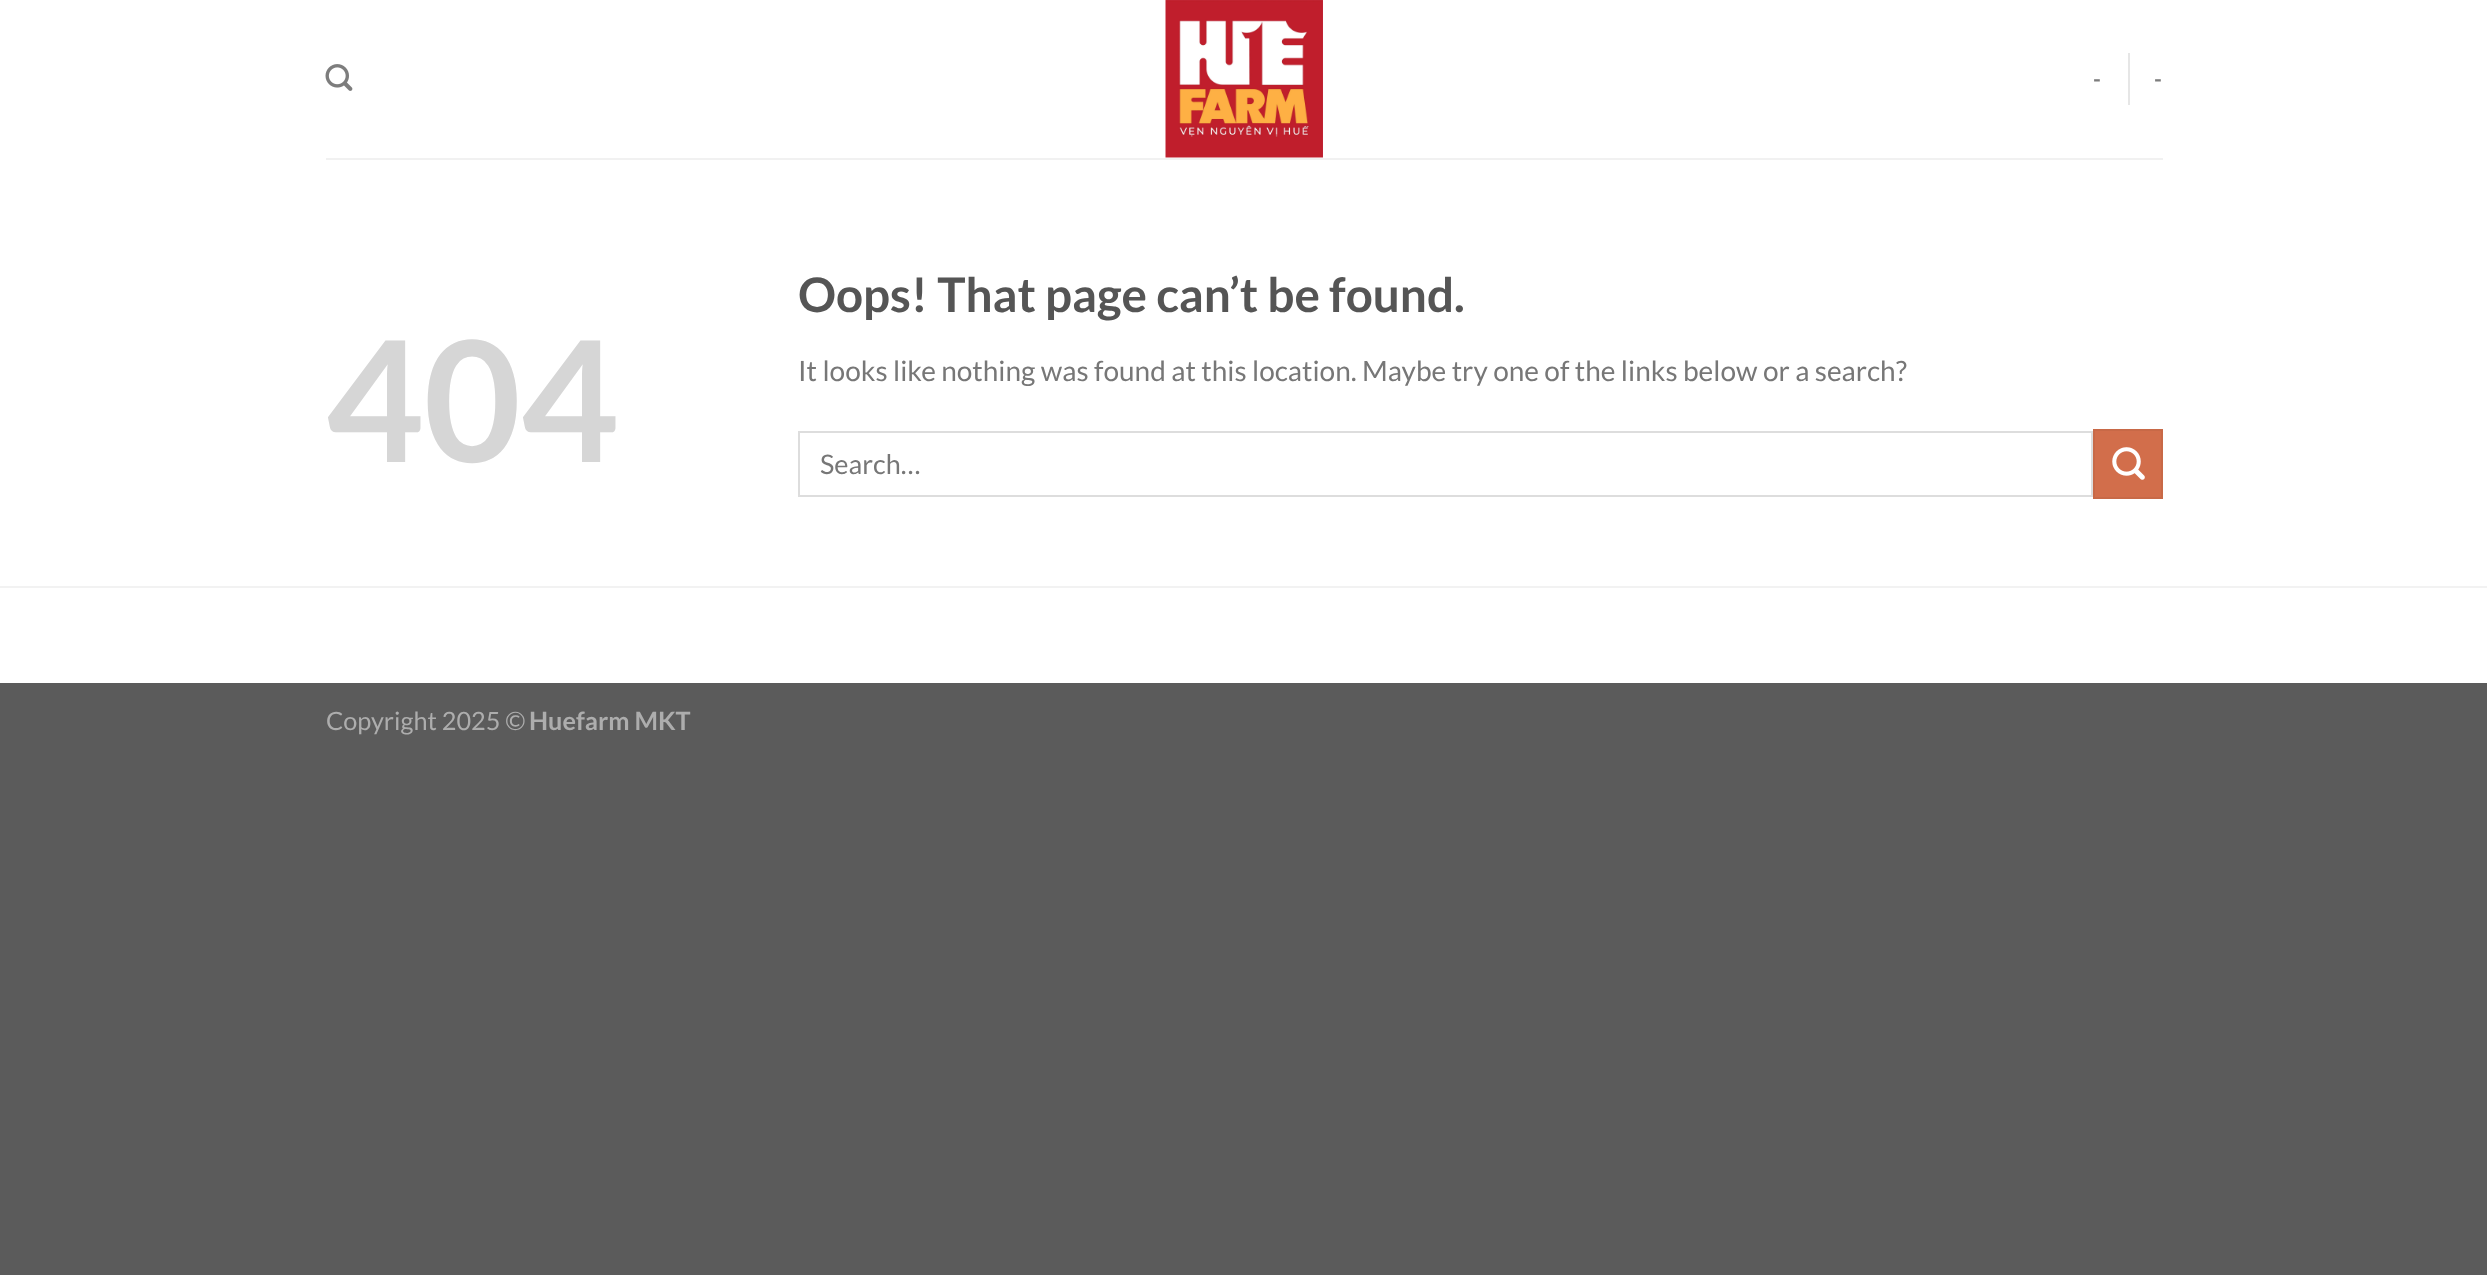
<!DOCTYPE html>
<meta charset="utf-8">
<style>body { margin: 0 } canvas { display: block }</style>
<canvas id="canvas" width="2487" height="1275"></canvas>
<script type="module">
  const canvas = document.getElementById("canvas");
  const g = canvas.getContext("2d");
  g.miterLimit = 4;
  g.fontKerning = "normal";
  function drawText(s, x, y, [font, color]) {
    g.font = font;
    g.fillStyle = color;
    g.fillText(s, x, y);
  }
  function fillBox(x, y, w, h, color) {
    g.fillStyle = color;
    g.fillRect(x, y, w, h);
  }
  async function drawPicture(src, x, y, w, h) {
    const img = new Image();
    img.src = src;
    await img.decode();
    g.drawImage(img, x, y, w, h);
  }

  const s1 = ["bold 22px Lato", "#7D7D7D"];
  const s2 = ["bold 168px Lato", "#D6D6D6"];
  const s3 = ["bold 47.6px Lato", "#555555"];
  const s4 = ["28px Lato", "#777777"];
  const s5 = ["27px Lato", "#777777"];
  const s6 = ["25.25px Lato", "#ADADAD"];
  const s7 = ["bold 25.25px Lato", "#ADADAD"];

  fillBox(0, 0, 2487, 1275, "#5B5B5B");
  fillBox(0, 0, 2487, 683, "#FFFFFF");
  await drawPicture("pic1.png", 325, 64, 28, 27);
  await drawPicture("pic2.png", 1165, 0, 158, 158);
  drawText("-", 2093, 87, s1);
  fillBox(2128, 53, 2, 52, "#E6E6E6");
  drawText("-", 2154, 87, s1);
  fillBox(326, 158, 1837, 2, "#F1F1F1");
  drawText("404", 326, 462, s2);
  drawText("Oops! That page can’t be found.", 798, 312, s3);
  drawText("It looks like nothing was found at this location. Maybe try one of the links below or a search?", 798, 381, s4);
  g.strokeStyle = "#DDDDDD";
  g.lineWidth = 2;
  g.strokeRect(799, 432, 1293, 64);
  drawText("Search…", 820, 474, s5);
  g.fillStyle = "#D26E4B";
  g.beginPath();
  g.rect(2094, 430, 68, 68);
  g.fill();
  g.strokeStyle = "#C86947";
  g.stroke();
  await drawPicture("pic3.png", 2112, 447, 33, 33);
  fillBox(0, 586, 2487, 2, "#F2F2F2");
  drawText("Copyright 2025 ©", 326, 730, s6);
  drawText("Huefarm MKT", 529, 730, s7);
</script>
